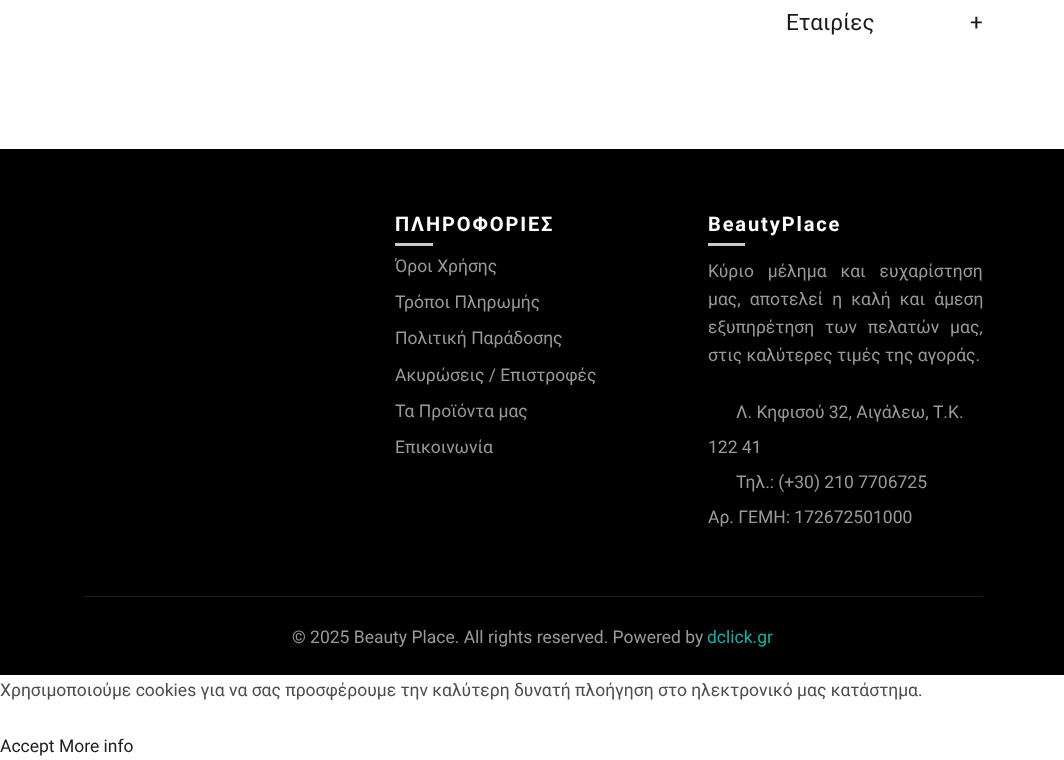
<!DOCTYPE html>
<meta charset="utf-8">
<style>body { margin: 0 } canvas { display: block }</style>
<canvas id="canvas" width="1064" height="760"></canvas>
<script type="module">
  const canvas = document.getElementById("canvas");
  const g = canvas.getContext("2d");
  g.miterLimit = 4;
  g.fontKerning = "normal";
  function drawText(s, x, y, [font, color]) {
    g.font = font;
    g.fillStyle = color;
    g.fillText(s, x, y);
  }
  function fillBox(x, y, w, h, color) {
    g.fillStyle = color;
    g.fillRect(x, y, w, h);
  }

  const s1 = ["22.5px Roboto", "#1B1919"];
  const s2 = ["bold 20px Roboto", "#FFFFFF"];
  const s3 = ["17.5px Roboto", "#999999"];
  const s4 = ["17.5px Roboto", "#1AADA3"];
  const s5 = ["17.5px Roboto", "#4C4C4C"];
  const s6 = ["17.5px Roboto", "#202020"];

  fillBox(0, 0, 1064, 760, "#FFFFFF");
  drawText("Εταιρίες", 786, 30, s1);
  drawText("+", 970, 30, s1);
  fillBox(0, 149, 1064, 526, "#000000");
  g.letterSpacing = "1.9px";
  drawText("ΠΛΗΡΟΦΟΡΙΕΣ", 395, 231, s2);
  fillBox(395, 243, 38, 3, "#CCCCCC");
  g.letterSpacing = "0px";
  drawText("Όροι Χρήσης", 395, 272, s3);
  drawText("Τρόποι Πληρωμής", 395, 308, s3);
  drawText("Πολιτική Παράδοσης", 395, 344, s3);
  drawText("Ακυρώσεις / Επιστροφές", 395, 381, s3);
  drawText("Τα Προϊόντα μας", 395, 417, s3);
  drawText("Επικοινωνία", 395, 453, s3);
  g.letterSpacing = "1.9px";
  drawText("BeautyPlace", 708, 231, s2);
  fillBox(708, 243, 37, 3, "#CCCCCC");
  g.letterSpacing = "0px";
  g.wordSpacing = "9.5px";
  drawText("Κύριο μέλημα και ευχαρίστηση", 708, 277, s3);
  g.wordSpacing = "4.75px";
  drawText("μας, αποτελεί η καλή και άμεση", 708, 305, s3);
  g.wordSpacing = "6.5px";
  drawText("εξυπηρέτηση των πελατών μας,", 708, 333, s3);
  g.wordSpacing = "0px";
  drawText("στις καλύτερες τιμές της αγοράς.", 708, 361, s3);
  drawText("Λ. Κηφισού 32, Αιγάλεω, Τ.Κ.", 736, 418, s3);
  drawText("122 41", 708, 453, s3);
  drawText("Τηλ.: (+30) 210 7706725", 736, 488, s3);
  drawText("Αρ. ΓΕΜΗ: 172672501000", 708, 523, s3);
  fillBox(83, 596, 900, 1, "#1A1A1A");
  drawText("© 2025 Beauty Place. All rights reserved. Powered by", 292, 643, s3);
  drawText("dclick.gr", 707, 643, s4);
  drawText("Χρησιμοποιούμε cookies για να σας προσφέρουμε την καλύτερη δυνατή πλοήγηση στο ηλεκτρονικό μας κατάστημα.", 0, 696, s5);
  drawText("Accept More info", 0, 752, s6);
</script>
